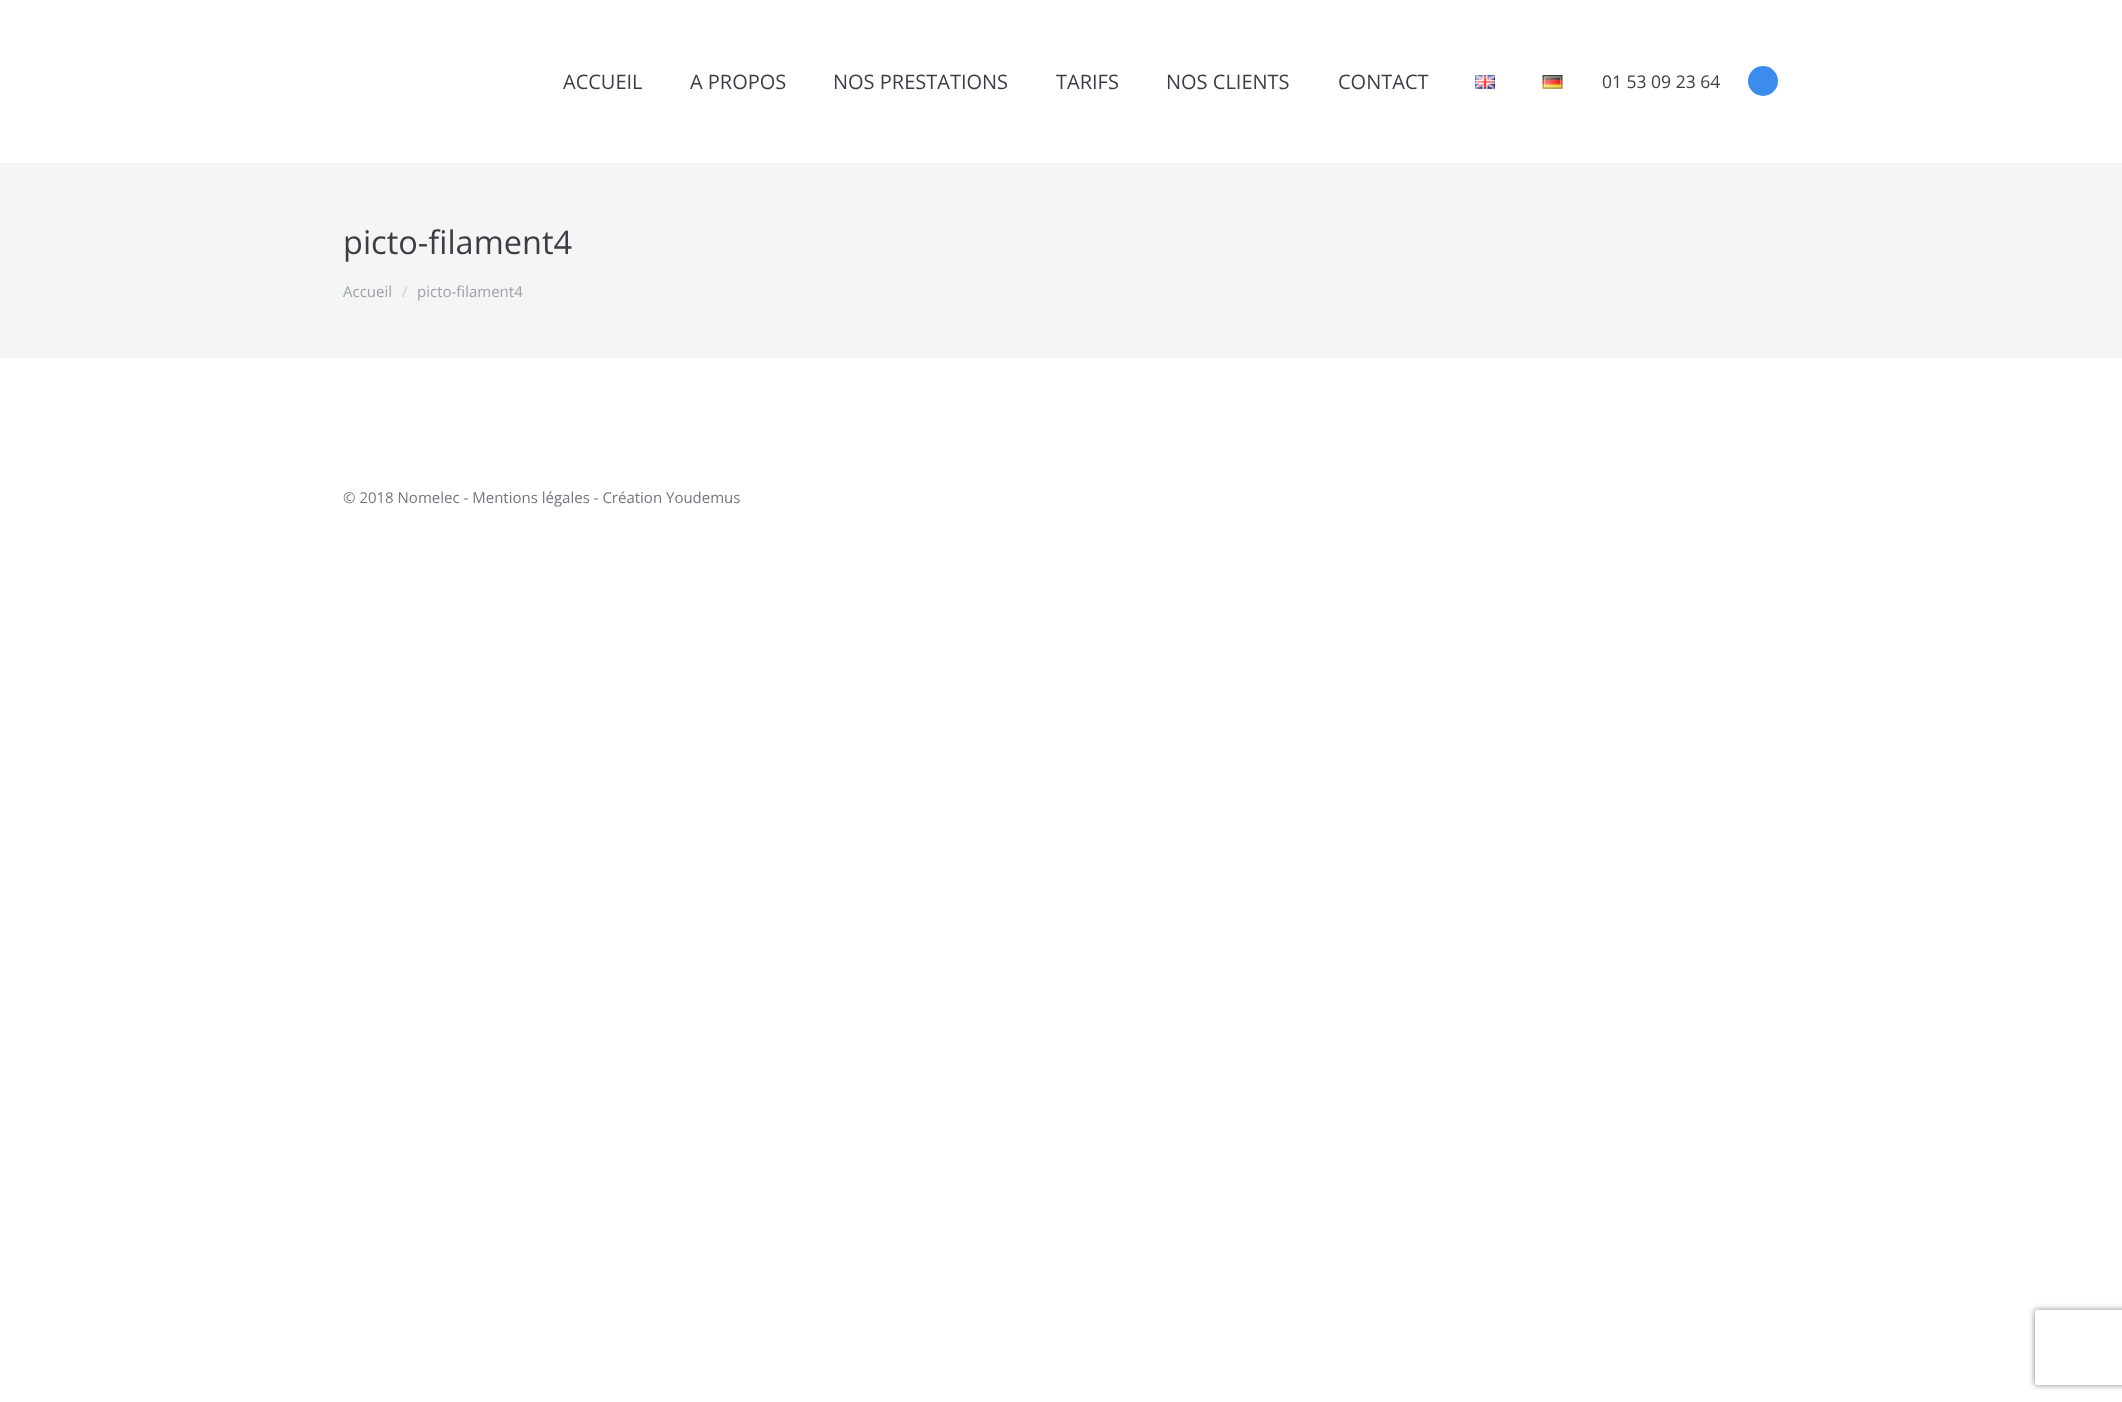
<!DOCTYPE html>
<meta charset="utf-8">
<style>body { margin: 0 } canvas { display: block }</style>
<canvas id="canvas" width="2122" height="1402"></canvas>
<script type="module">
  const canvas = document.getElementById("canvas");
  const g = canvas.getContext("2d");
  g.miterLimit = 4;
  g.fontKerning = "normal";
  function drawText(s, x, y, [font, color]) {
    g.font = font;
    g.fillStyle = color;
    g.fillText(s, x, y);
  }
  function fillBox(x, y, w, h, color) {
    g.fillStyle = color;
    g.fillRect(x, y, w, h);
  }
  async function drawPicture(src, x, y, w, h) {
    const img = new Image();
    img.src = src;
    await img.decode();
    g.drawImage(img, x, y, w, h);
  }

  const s1 = ["20px Open Sans", "#3C3E45"];
  const s2 = ["17.5px Open Sans", "#3C3E45"];
  const s3 = ["32.5px Open Sans", "#3C3E45"];
  const s4 = ["15px Open Sans", "#9BA1A8"];
  const s5 = ["15px Open Sans", "#C8CBCF"];
  const s6 = ["15px Open Sans", "#72777D"];

  fillBox(0, 0, 2122, 1402, "#FFFFFF");
  drawText("ACCUEIL", 563, 89, s1);
  drawText("A PROPOS", 690, 89, s1);
  drawText("NOS PRESTATIONS", 833, 89, s1);
  drawText("TARIFS", 1056, 89, s1);
  drawText("NOS CLIENTS", 1166, 89, s1);
  drawText("CONTACT", 1338, 89, s1);
  await drawPicture("pic1.png", 1475, 75, 20, 14);
  await drawPicture("pic2.png", 1542, 75, 21, 14);
  drawText("01 53 09 23 64", 1602, 88, s2);
  g.fillStyle = "#3B8CED";
  g.beginPath();
  g.arc(1763, 81, 15, 0, Math.PI * 2);
  g.fill();
  fillBox(0, 163, 2122, 195, "#F4F5F5");
  drawText("picto-filament4", 343, 254, s3);
  drawText("Accueil", 343, 297, s4);
  drawText("/", 402, 297, s5);
  drawText("picto-filament4", 417, 297, s4);
  drawText("© 2018 Nomelec - Mentions légales - Création Youdemus", 343, 503, s6);
  g.save();
  g.beginPath();
  g.moveTo(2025, 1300);
  g.lineTo(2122, 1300);
  g.lineTo(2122, 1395);
  g.lineTo(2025, 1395);
  g.closePath();
  g.moveTo(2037.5, 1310);
  g.lineTo(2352.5, 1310);
  g.bezierCurveTo(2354, 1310, 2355, 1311, 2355, 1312.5);
  g.lineTo(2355, 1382.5);
  g.bezierCurveTo(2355, 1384, 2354, 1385, 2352.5, 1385);
  g.lineTo(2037.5, 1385);
  g.bezierCurveTo(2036, 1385, 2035, 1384, 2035, 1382.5);
  g.lineTo(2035, 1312.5);
  g.bezierCurveTo(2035, 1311, 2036, 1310, 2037.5, 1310);
  g.closePath();
  g.clip("evenodd");
  g.fillStyle = "#808080";
  g.filter = "blur(3px)";
  g.beginPath();
  g.roundRect(2035, 1310, 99, 75, 2.5);
  g.fill();
  g.filter = "none";
  g.restore();
</script>
